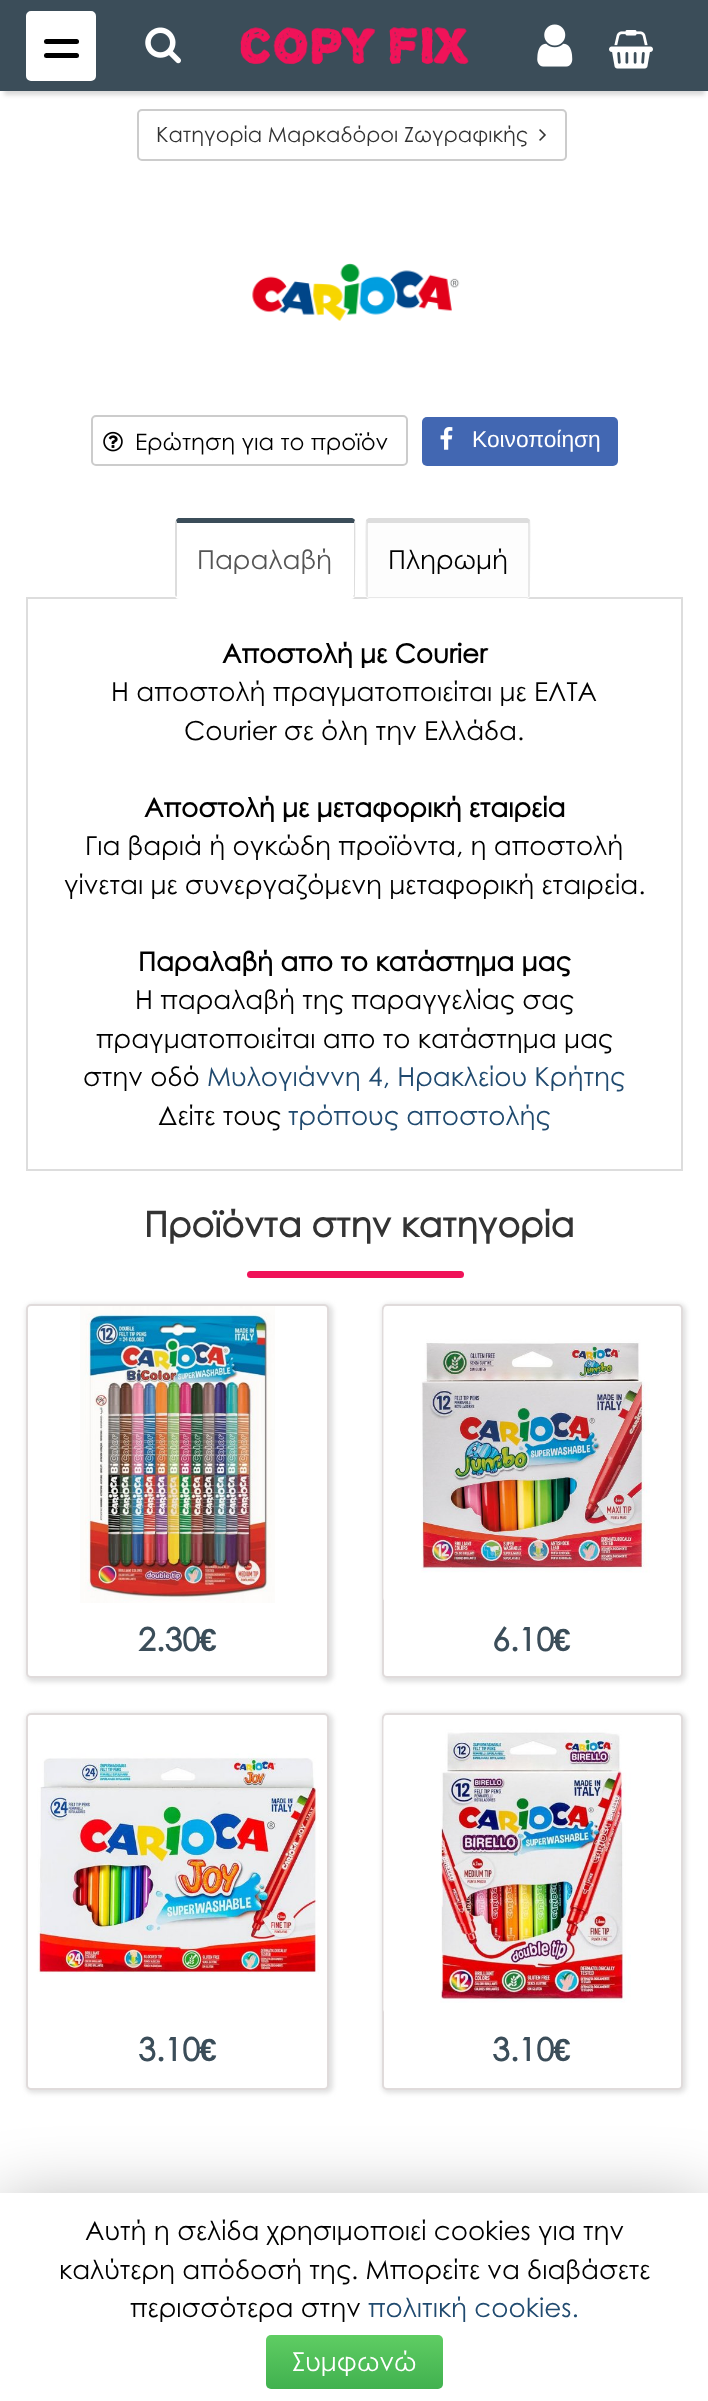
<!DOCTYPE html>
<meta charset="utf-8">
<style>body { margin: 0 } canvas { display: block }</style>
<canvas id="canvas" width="708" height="2401"></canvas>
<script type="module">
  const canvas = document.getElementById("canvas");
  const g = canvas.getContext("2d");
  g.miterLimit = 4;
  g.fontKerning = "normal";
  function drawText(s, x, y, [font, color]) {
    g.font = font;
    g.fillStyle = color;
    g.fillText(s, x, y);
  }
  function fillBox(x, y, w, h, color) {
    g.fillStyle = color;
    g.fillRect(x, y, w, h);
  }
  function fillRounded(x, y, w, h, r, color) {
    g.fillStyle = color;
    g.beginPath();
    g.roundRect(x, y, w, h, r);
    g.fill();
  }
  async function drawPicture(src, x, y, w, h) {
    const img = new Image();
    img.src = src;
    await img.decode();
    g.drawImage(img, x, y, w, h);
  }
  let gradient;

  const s1 = ["21px Century Gothic", "#333333"];
  const s2 = ["22.75px Century Gothic", "#000000"];
  const s3 = ["22.75px Liberation Sans", "#FFFFFF"];
  const s4 = ["26.25px Century Gothic", "#555555"];
  const s5 = ["26.25px Century Gothic", "#000000"];
  const s6 = ["bold 26.25px Century Gothic", "#000000"];
  const s7 = ["26.25px Century Gothic", "#204A6F"];
  const s8 = ["bold 35px Century Gothic", "#333333"];
  const s9 = ["bold 32px Century Gothic", "#3B4D59"];
  const s10 = ["bold 32px Liberation Sans", "#3B4D59"];
  const s11 = ["26.25px Century Gothic", "#FFFFFF"];

  fillBox(0, 0, 708, 2401, "#FFFFFF");
  g.fillStyle = "rgba(0, 0, 0, 0.15)";
  g.filter = "blur(2px)";
  g.beginPath();
  g.rect(4, 11, 701, 84);
  g.fill();
  g.filter = "none";
  fillBox(0, 0, 708, 91, "#3B4D59");
  g.fillStyle = "#FFFFFF";
  g.beginPath();
  g.roundRect(27, 12, 68, 68, 4);
  g.fill();
  g.strokeStyle = "#FFFFFF";
  g.lineWidth = 2;
  g.stroke();
  fillRounded(44, 39, 35, 5, 2.5, "#000000");
  fillRounded(44, 53, 35, 5, 2.5, "#000000");
  await drawPicture("pic1.png", 145, 27, 36, 37);
  await drawPicture("pic2.png", 240, 26, 229, 39);
  await drawPicture("pic3.png", 537, 24, 36, 43);
  await drawPicture("pic4.png", 609, 30, 44, 39);
  g.beginPath();
  g.roundRect(138, 110, 428, 50, 4);
  g.strokeStyle = "#CCCCCC";
  g.stroke();
  drawText("Κατηγορία Μαρκαδόροι Ζωγραφικής", 156, 142, s1);
  await drawPicture("pic5.png", 539, 129, 7, 12);
  await drawPicture("pic6.png", 252, 263, 208, 58);
  g.beginPath();
  g.roundRect(92, 416, 315, 49, 4);
  g.stroke();
  await drawPicture("pic7.png", 103, 431, 20, 21);
  drawText("Ερώτηση για το προϊόν", 135, 450, s2);
  fillRounded(422, 417, 196, 49, 5, "#4267B2");
  await drawPicture("pic8.png", 440, 427, 13, 23);
  drawText("Κοινοποίηση", 472, 447, s3);
  fillBox(26, 597, 657, 2, "#DDDDDD");
  fillRounded(175, 518, 180, 81, 4, "#FFFFFF");
  g.fillStyle = "#3B4D59";
  g.beginPath();
  g.moveTo(178, 518);
  g.lineTo(176, 520);
  g.lineTo(177, 524);
  g.lineTo(177, 523);
  g.lineTo(354, 523);
  g.lineTo(355, 520);
  g.bezierCurveTo(354, 519, 353, 518, 352, 518);
  g.closePath();
  g.fill();
  g.fillStyle = "#DDDDDD";
  g.beginPath();
  g.moveTo(355, 520);
  g.bezierCurveTo(356, 522, 355, 595, 355, 596);
  g.lineTo(354, 597);
  g.lineTo(353, 596);
  g.lineTo(354, 595);
  g.lineTo(354, 523);
  g.closePath();
  g.fill();
  g.beginPath();
  g.moveTo(175, 522);
  g.lineTo(175, 595);
  g.lineTo(176, 597);
  g.lineTo(177, 596);
  g.lineTo(177, 595);
  g.lineTo(177, 524);
  g.lineTo(176, 520);
  g.closePath();
  g.fill();
  drawText("Παραλαβή", 197, 569, s4);
  fillRounded(366, 518, 164, 81, 4, "#FDFDFD");
  g.fillStyle = "#DDDDDD";
  g.beginPath();
  g.moveTo(369, 518);
  g.bezierCurveTo(368, 518, 367, 519, 366, 520);
  g.lineTo(368, 525);
  g.lineTo(368, 523);
  g.lineTo(528, 523);
  g.lineTo(528, 525);
  g.lineTo(530, 520);
  g.bezierCurveTo(529, 519, 528, 518, 527, 518);
  g.closePath();
  g.fill();
  g.fillStyle = "rgba(193, 193, 193, 0.36)";
  g.beginPath();
  g.moveTo(530, 520);
  g.bezierCurveTo(531, 522, 530, 595, 530, 596);
  g.lineTo(529, 597);
  g.lineTo(528, 596);
  g.lineTo(528, 525);
  g.closePath();
  g.fill();
  g.beginPath();
  g.moveTo(529, 597);
  g.lineTo(527, 598);
  g.lineTo(369, 598);
  g.lineTo(367, 597);
  g.lineTo(368, 596);
  g.bezierCurveTo(368, 597, 368, 597, 369, 597);
  g.lineTo(527, 597);
  g.bezierCurveTo(528, 597, 528, 597, 528, 596);
  g.closePath();
  g.fill();
  g.beginPath();
  g.moveTo(366, 520);
  g.bezierCurveTo(365, 522, 366, 595, 366, 596);
  g.lineTo(367, 597);
  g.lineTo(368, 596);
  g.lineTo(368, 525);
  g.closePath();
  g.fill();
  drawText("Πληρωμή", 388, 569, s5);
  fillBox(681, 599, 2, 572, "#DDDDDD");
  fillBox(26, 1169, 657, 2, "#DDDDDD");
  fillBox(26, 599, 2, 572, "#DDDDDD");
  drawText("Αποστολή με Courier", 222, 663, s6);
  drawText("Η αποστολή πραγματοποιείται με ΕΛΤΑ", 111, 701, s5);
  drawText("Courier σε όλη την Ελλάδα.", 184, 740, s5);
  drawText("Αποστολή με μεταφορική εταιρεία", 144, 817, s6);
  drawText("Για βαριά ή ογκώδη προϊόντα, η αποστολή", 85, 855, s5);
  drawText("γίνεται με συνεργαζόμενη μεταφορική εταιρεία.", 64, 894, s5);
  drawText("Παραλαβή απο το κατάστημα μας", 138, 971, s6);
  drawText("H παραλαβή της παραγγελίας σας", 135, 1009, s5);
  drawText("πραγματοποιείται απο το κατάστημα μας", 96, 1048, s5);
  drawText("στην οδό", 83, 1086, s5);
  drawText("Μυλογιάννη 4, Ηρακλείου Κρήτης", 207, 1086, s7);
  drawText("Δείτε τους", 158, 1125, s5);
  drawText("τρόπους αποστολής", 288, 1125, s7);
  drawText("Προϊόντα στην κατηγορία", 144, 1237, s8);
  fillRounded(247, 1271, 217, 7, 3.5, "#F01359");
  g.fillStyle = "#E0E0E0";
  g.filter = "blur(2.5px)";
  g.beginPath();
  g.roundRect(26, 1304, 307, 378, 7);
  g.fill();
  g.filter = "none";
  g.fillStyle = "#FFFFFF";
  g.beginPath();
  g.roundRect(27, 1305, 301, 372, 4);
  g.fill();
  g.strokeStyle = "#E0DBDB";
  g.stroke();
  await drawPicture("pic9.png", 80, 1306, 195, 297);
  drawText("2.30", 138, 1651, s9);
  drawText("€", 199, 1651, s10);
  g.fillStyle = "#E0E0E0";
  g.filter = "blur(2.5px)";
  g.beginPath();
  g.roundRect(382, 1304, 304, 378, 7);
  g.fill();
  g.filter = "none";
  g.fillStyle = "#FFFFFF";
  g.beginPath();
  g.roundRect(383, 1305, 299, 372, 4);
  g.fill();
  g.stroke();
  await drawPicture("pic10.png", 383, 1307, 267, 293);
  drawText("6.10", 492, 1651, s9);
  drawText("€", 553, 1651, s10);
  g.fillStyle = "#E0E0E0";
  g.filter = "blur(2.5px)";
  g.beginPath();
  g.roundRect(26, 1713, 307, 380, 7);
  g.fill();
  g.filter = "none";
  g.fillStyle = "#FFFFFF";
  g.beginPath();
  g.roundRect(27, 1714, 301, 375, 4);
  g.fill();
  g.stroke();
  await drawPicture("pic11.png", 37, 1753, 283, 221);
  drawText("3.10", 138, 2061, s9);
  drawText("€", 199, 2061, s10);
  g.fillStyle = "#E0E0E0";
  g.filter = "blur(2.5px)";
  g.beginPath();
  g.roundRect(382, 1713, 304, 380, 7);
  g.fill();
  g.filter = "none";
  g.fillStyle = "#FFFFFF";
  g.beginPath();
  g.roundRect(383, 1714, 299, 375, 4);
  g.fill();
  g.stroke();
  await drawPicture("pic12.png", 383, 1718, 248, 294);
  drawText("3.10", 492, 2061, s9);
  drawText("€", 553, 2061, s10);
  g.fillStyle = "rgba(0, 0, 0, 0.3)";
  g.filter = "blur(35px)";
  g.beginPath();
  g.rect(0, 2203, 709, 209);
  g.fill();
  g.filter = "none";
  fillBox(0, 2193, 708, 208, "#FFFFFF");
  drawText("Αυτή η σελίδα χρησιμοποιεί cookies για την", 85, 2240, s5);
  drawText("καλύτερη απόδοσή της. Μπορείτε να διαβάσετε", 59, 2279, s5);
  drawText("περισσότερα στην", 130, 2317, s5);
  drawText("πολιτική cookies.", 368, 2317, s7);
  gradient = g.createLinearGradient(354, 2335, 354, 2389);
  gradient.addColorStop(0, "#5FCD63");
  gradient.addColorStop(1, "#41B14F");
  g.fillStyle = gradient;
  g.beginPath();
  g.roundRect(266, 2335, 177, 54, 5);
  g.fill();
  drawText("Συμφωνώ", 292, 2371, s11);
</script>
